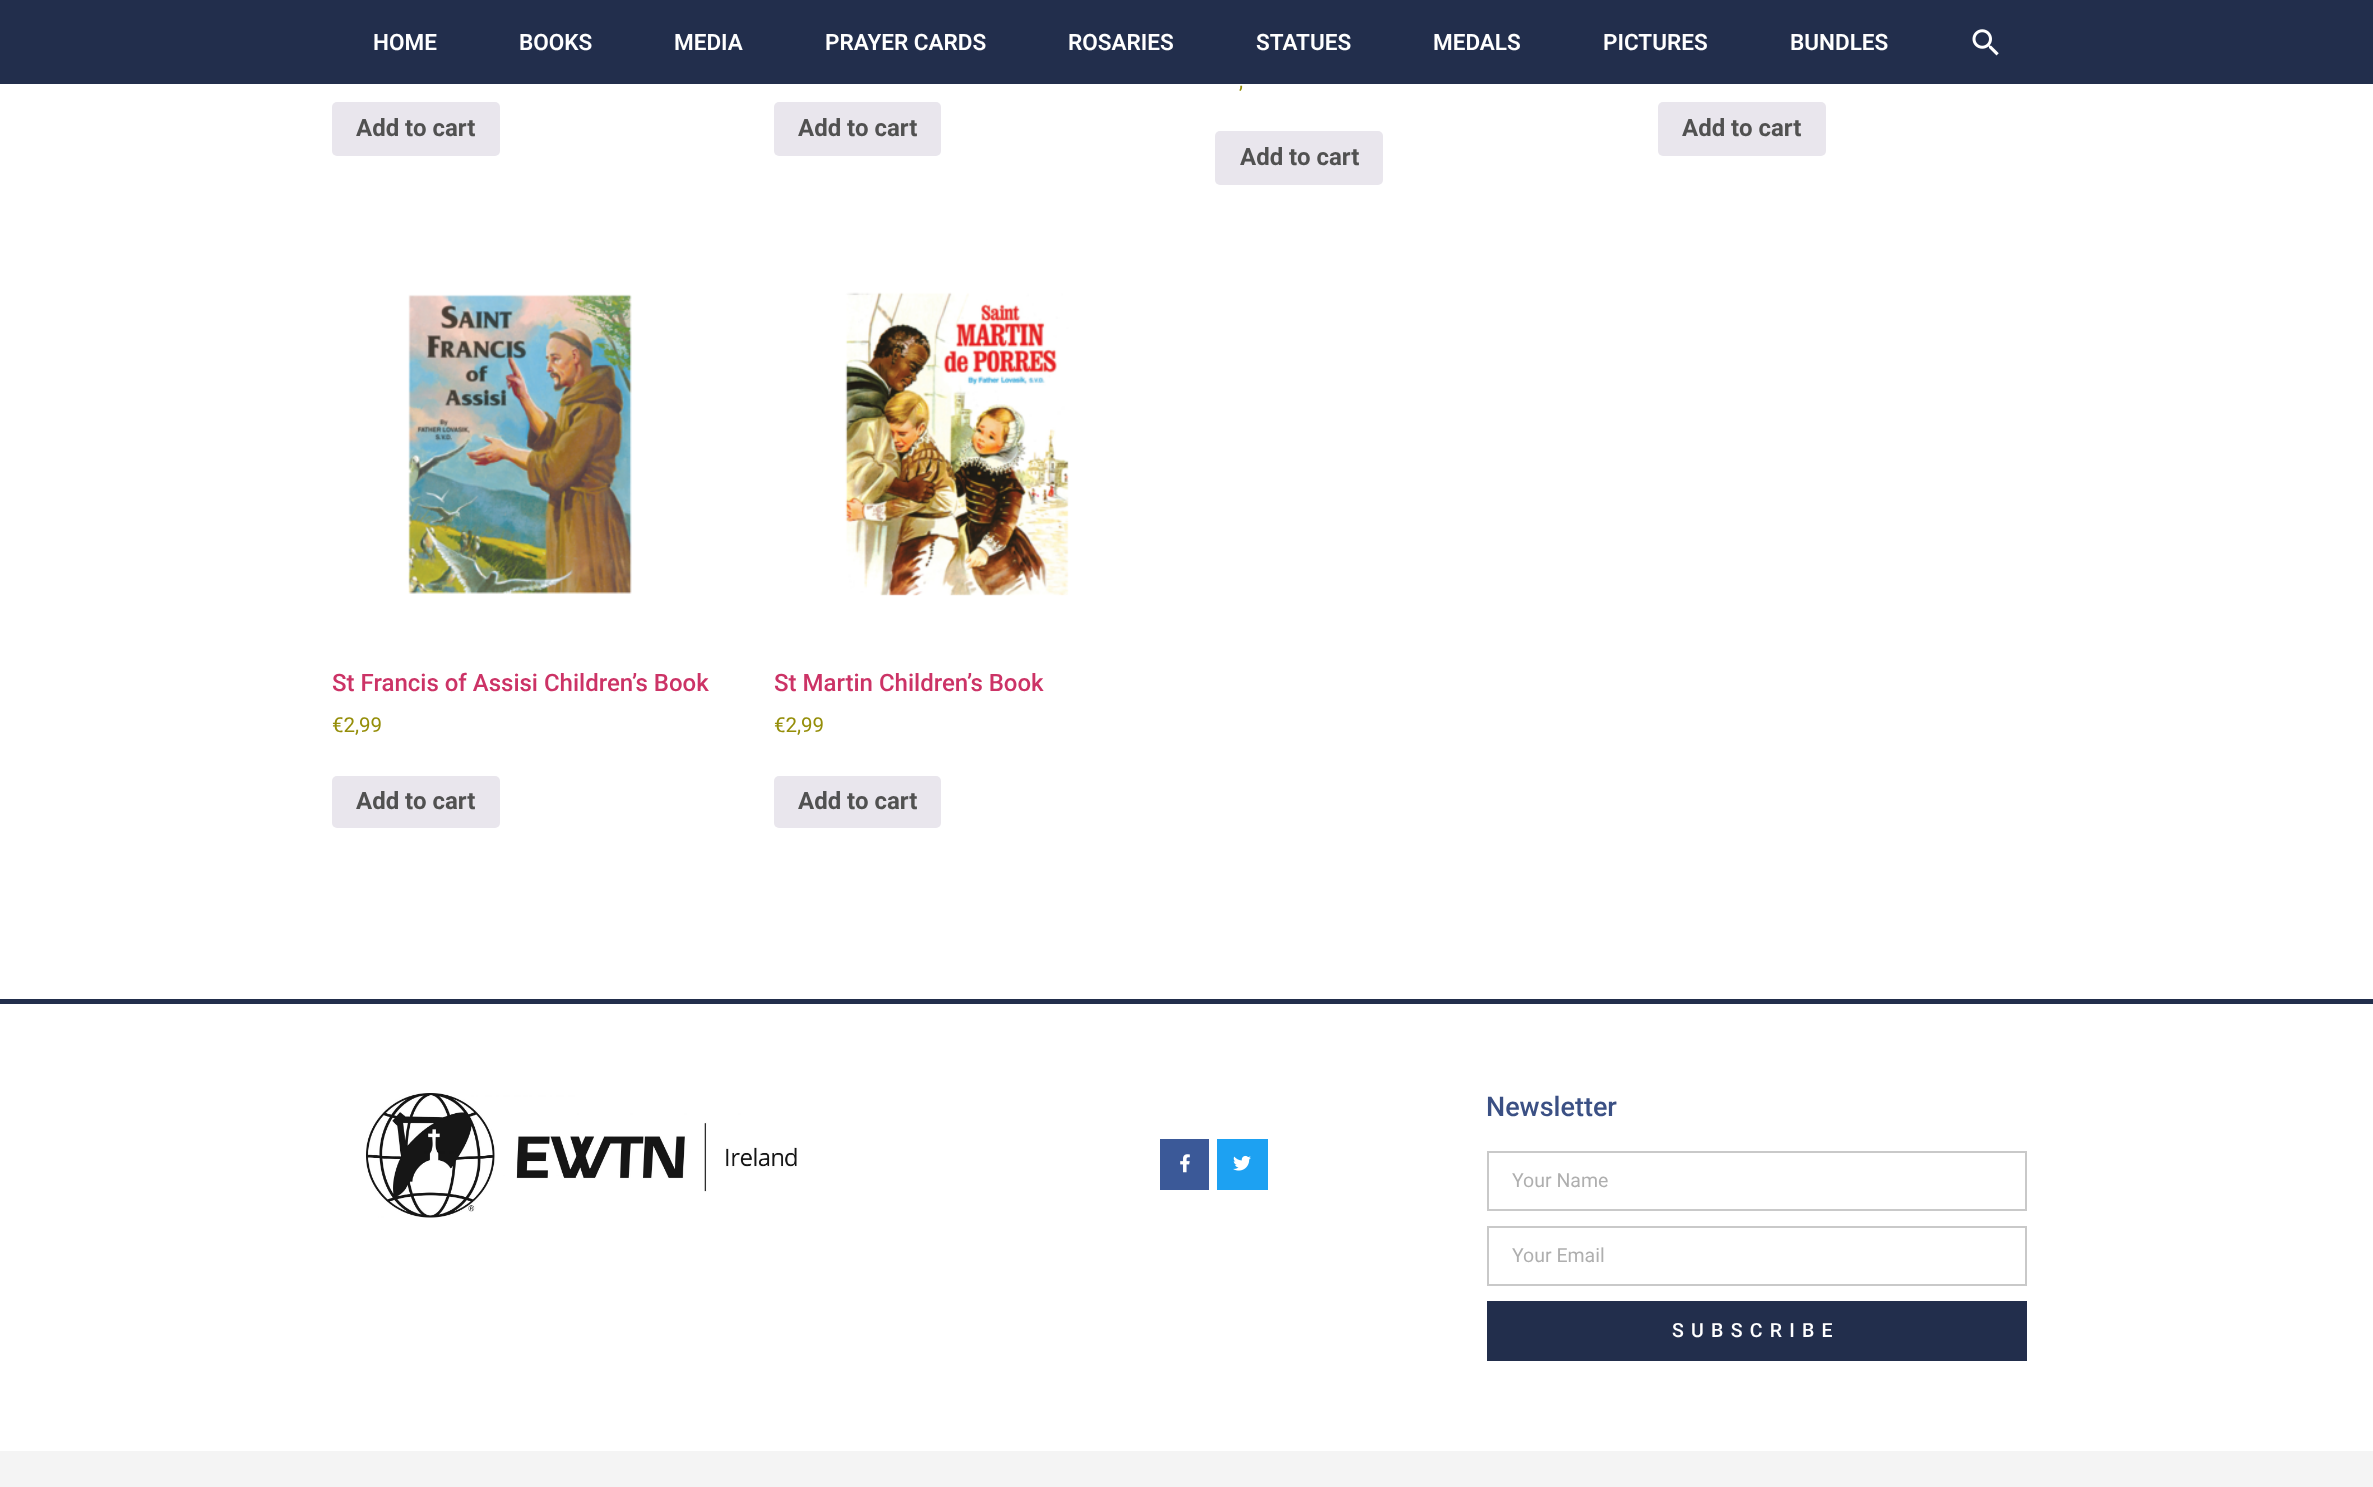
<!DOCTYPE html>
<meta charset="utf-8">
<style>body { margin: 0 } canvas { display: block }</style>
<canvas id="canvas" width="2373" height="1487"></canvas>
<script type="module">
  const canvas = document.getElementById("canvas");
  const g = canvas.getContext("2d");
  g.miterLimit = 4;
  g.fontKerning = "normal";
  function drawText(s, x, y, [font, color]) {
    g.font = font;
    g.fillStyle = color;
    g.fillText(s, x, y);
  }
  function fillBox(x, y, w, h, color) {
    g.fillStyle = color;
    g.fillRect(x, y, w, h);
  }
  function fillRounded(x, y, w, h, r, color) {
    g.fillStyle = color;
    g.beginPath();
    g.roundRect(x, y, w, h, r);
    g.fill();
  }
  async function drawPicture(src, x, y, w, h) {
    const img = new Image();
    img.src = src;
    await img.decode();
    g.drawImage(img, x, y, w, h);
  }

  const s1 = ["600 22.5px Roboto", "#FFFFFF"];
  const s2 = ["bold 24px Roboto", "#515151"];
  const s3 = ["20.5px Roboto", "#958E09"];
  const s4 = ["500 24px Roboto", "#CC3366"];
  const s5 = ["500 27px Roboto", "#3B5084"];
  const s6 = ["19.5px Roboto", "#AFAFAF"];
  const s7 = ["500 19.5px Roboto", "#FFFFFF"];

  fillBox(0, 0, 2373, 1487, "#FFFFFF");
  fillBox(0, 0, 2373, 84, "#222E4C");
  drawText("HOME", 373, 50, s1);
  drawText("BOOKS", 519, 50, s1);
  drawText("MEDIA", 674, 50, s1);
  drawText("PRAYER CARDS", 825, 50, s1);
  drawText("ROSARIES", 1068, 50, s1);
  drawText("STATUES", 1256, 50, s1);
  drawText("MEDALS", 1433, 50, s1);
  drawText("PICTURES", 1603, 50, s1);
  drawText("BUNDLES", 1790, 50, s1);
  await drawPicture("pic1.png", 1972, 29, 27, 27);
  fillRounded(332, 102, 168, 54, 5, "#E9E6ED");
  drawText("Add to cart", 356, 136, s2);
  fillRounded(774, 102, 167, 54, 5, "#E9E6ED");
  drawText("Add to cart", 798, 136, s2);
  drawText(",", 1239, 88, s3);
  fillRounded(1215, 131, 168, 54, 5, "#E9E6ED");
  drawText("Add to cart", 1240, 165, s2);
  fillRounded(1658, 102, 168, 54, 5, "#E9E6ED");
  drawText("Add to cart", 1682, 136, s2);
  await drawPicture("pic2.png", 408, 294, 224, 300);
  drawText("St Francis of Assisi Children’s Book", 332, 691, s4);
  drawText("€2,99", 332, 732, s3);
  fillRounded(332, 776, 168, 52, 5, "#E9E6ED");
  drawText("Add to cart", 356, 809, s2);
  await drawPicture("pic3.png", 845, 292, 224, 304);
  drawText("St Martin Children’s Book", 774, 691, s4);
  drawText("€2,99", 774, 732, s3);
  fillRounded(774, 776, 167, 52, 5, "#E9E6ED");
  drawText("Add to cart", 798, 809, s2);
  fillBox(0, 999, 2373, 5, "#222E4C");
  await drawPicture("pic4.png", 366, 1093, 431, 125);
  fillBox(1160, 1139, 49, 51, "#3B5998");
  await drawPicture("pic5.png", 1180, 1154, 10, 19);
  fillBox(1217, 1139, 51, 51, "#1DA1F2");
  await drawPicture("pic6.png", 1233, 1155, 18, 16);
  drawText("Newsletter", 1486, 1116, s5);
  g.strokeStyle = "#C9C9C9";
  g.lineWidth = 2;
  g.strokeRect(1488, 1152, 538, 58);
  drawText("Your Name", 1512, 1187, s6);
  g.strokeRect(1488, 1227, 538, 58);
  drawText("Your Email", 1512, 1262, s6);
  fillBox(1487, 1301, 540, 60, "#222E4C");
  g.letterSpacing = "7.25px";
  drawText("SUBSCRIBE", 1672, 1337, s7);
  fillBox(0, 1451, 2373, 36, "#F4F4F4");
</script>
